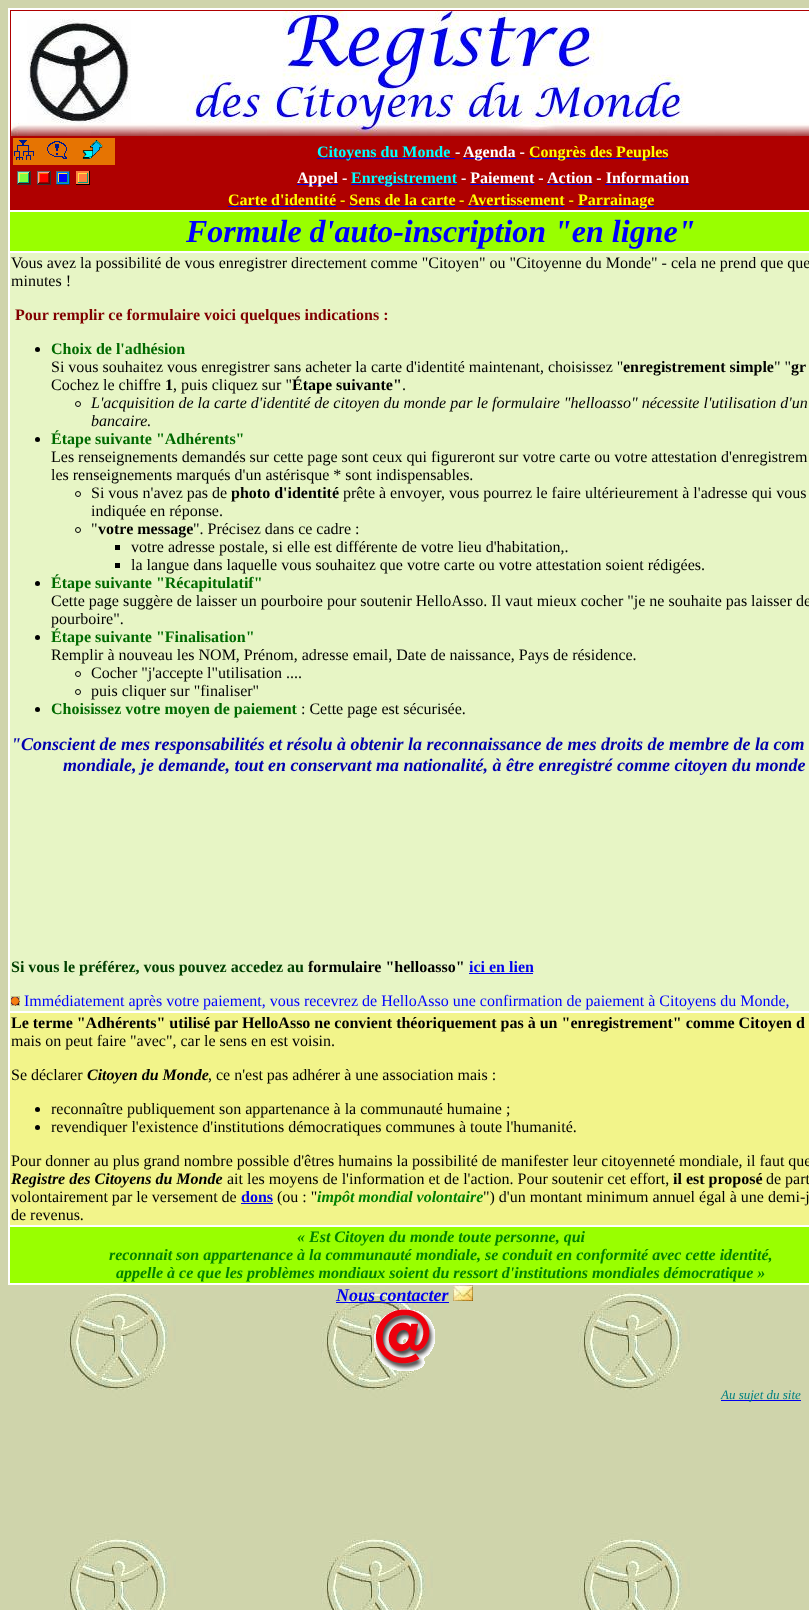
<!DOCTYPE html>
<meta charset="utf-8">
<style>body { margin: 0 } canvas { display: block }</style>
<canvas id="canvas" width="809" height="1610"></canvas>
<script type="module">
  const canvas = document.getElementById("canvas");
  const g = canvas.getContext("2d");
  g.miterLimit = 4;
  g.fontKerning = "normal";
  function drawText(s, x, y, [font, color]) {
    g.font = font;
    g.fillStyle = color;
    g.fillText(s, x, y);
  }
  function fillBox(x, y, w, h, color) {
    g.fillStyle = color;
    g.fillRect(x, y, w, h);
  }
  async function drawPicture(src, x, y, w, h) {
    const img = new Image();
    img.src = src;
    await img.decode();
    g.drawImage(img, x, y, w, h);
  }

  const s1 = ["bold 16px Liberation Serif", "#00FFFF"];
  const s2 = ["bold 16px Liberation Serif", "#FFFFFF"];
  const s3 = ["bold 16px Liberation Serif", "#FFFF00"];
  const s4 = ["italic bold 32px Liberation Serif", "#0000FF"];
  const s5 = ["16px Liberation Serif", "#000000"];
  const s6 = ["bold 16px Liberation Serif", "#800000"];
  const s7 = ["bold 16px Liberation Serif", "#006A00"];
  const s8 = ["bold 16px Liberation Serif", "#000000"];
  const s9 = ["italic 16px Liberation Serif", "#000000"];
  const s10 = ["italic bold 18px Liberation Serif", "#0000AF"];
  const s11 = ["bold 16px Liberation Serif", "#004000"];
  const s12 = ["bold 16px Liberation Serif", "#0000EE"];
  const s13 = ["16px Liberation Serif", "#0000FF"];
  const s14 = ["italic bold 16px Liberation Serif", "#000000"];
  const s15 = ["italic bold 16px Liberation Serif", "#008000"];
  const s16 = ["italic bold 18px Liberation Serif", "#0000EE"];
  const s17 = ["italic 13px Liberation Serif", "#008080"];

  fillBox(0, 0, 809, 1610, "#FFFFFF");
  await drawPicture("pic1.png", 0, 0, 809, 1610);
  fillBox(8, 8, 801, 1277, "#FFFFFF");
  fillBox(10, 10, 799, 200, "#AF0000");
  await drawPicture("pic2.png", 11, 11, 798, 125);
  fillBox(13, 138, 102, 27, "#E67402");
  await drawPicture("pic3.png", 14, 140, 20, 20);
  await drawPicture("pic4.png", 47, 141, 20, 18);
  await drawPicture("pic5.png", 82, 140, 21, 19);
  fillBox(317, 158, 138, 1, "#0000EE");
  drawText("Citoyens du Monde", 317, 157, s1);
  drawText("-", 455, 157, s2);
  fillBox(463, 158, 53, 1, "#0000EE");
  drawText("Agenda -", 463, 157, s2);
  fillBox(529, 158, 139, 1, "#0000EE");
  drawText("Congrès des Peuples", 529, 157, s3);
  await drawPicture("pic6.png", 17, 171, 14, 14);
  await drawPicture("pic7.png", 37, 171, 14, 14);
  await drawPicture("pic8.png", 56, 171, 14, 14);
  await drawPicture("pic9.png", 76, 171, 14, 14);
  fillBox(297, 184, 41, 1, "#0000EE");
  drawText("Appel -", 297, 183, s2);
  fillBox(351, 184, 106, 1, "#0000EE");
  drawText("Enregistrement", 351, 183, s1);
  drawText("- Paiement -", 461, 183, s2);
  drawText("Action - Information", 547, 183, s2);
  fillBox(547, 184, 45, 1, "#0000EE");
  fillBox(470, 184, 64, 1, "#0000EE");
  fillBox(605, 184, 84, 1, "#0000EE");
  drawText("Carte d'identité - Sens de la carte", 228, 205, s3);
  fillBox(228, 206, 108, 1, "#0000EE");
  drawText("-", 459, 205, s3);
  drawText("Avertissement -", 468, 205, s3);
  fillBox(468, 206, 96, 1, "#0000EE");
  fillBox(578, 206, 76, 1, "#0000EE");
  drawText("Parrainage", 578, 205, s3);
  fillBox(349, 206, 106, 1, "#0000EE");
  fillBox(10, 212, 799, 39, "#99FF00");
  drawText("Formule d'auto-inscription \"en ligne\"", 186, 242, s4);
  fillBox(10, 253, 799, 758, "#E7F5C5");
  drawText("Vous avez la possibilité de vous enregistrer directement comme \"Citoyen\" ou \"Citoyenne du Monde\" - cela ne prend que que", 11, 268, s5);
  drawText("minutes !", 11, 286, s5);
  drawText("Pour remplir ce formulaire voici quelques indications :", 15, 320, s6);
  g.fillStyle = "#000000";
  g.beginPath();
  g.arc(37.5, 349.5, 2.5, 0, Math.PI * 2);
  g.fill();
  drawText("Choix de l'adhésion", 51, 354, s7);
  drawText("Si vous souhaitez vous enregistrer sans acheter la carte d'identité maintenant, choisissez \"", 51, 372, s5);
  drawText("enregistrement simple", 623, 372, s8);
  drawText("\" \"", 774, 372, s5);
  drawText("gr", 791, 372, s8);
  drawText("Cochez le chiffre", 51, 390, s5);
  drawText("1", 165, 390, s8);
  drawText(", puis cliquez sur \"", 173, 390, s5);
  drawText("Étape suivante\"", 292, 390, s8);
  drawText(".", 402, 390, s5);
  g.beginPath();
  g.arc(78, 404, 2.5, 0, Math.PI * 2);
  g.strokeStyle = "#000000";
  g.stroke();
  drawText("L'acquisition de la carte d'identité de citoyen du monde par le formulaire \"helloasso\" nécessite l'utilisation d'un", 91, 408, s9);
  drawText("bancaire.", 91, 426, s9);
  g.beginPath();
  g.arc(37.5, 439.5, 2.5, 0, Math.PI * 2);
  g.fill();
  drawText("Étape suivante \"Adhérents\"", 51, 444, s7);
  drawText("Les renseignements demandés sur cette page sont ceux qui figureront sur votre carte ou votre attestation d'enregistrem", 51, 462, s5);
  drawText("les renseignements marqués d'un astérisque * sont indispensables.", 51, 480, s5);
  g.beginPath();
  g.arc(78, 494, 2.5, 0, Math.PI * 2);
  g.stroke();
  drawText("Si vous n'avez pas de", 91, 498, s5);
  drawText("photo d'identité", 231, 498, s8);
  drawText("prête à envoyer, vous pourrez le faire ultérieurement à l'adresse qui vous", 343, 498, s5);
  drawText("indiquée en réponse.", 91, 516, s5);
  g.beginPath();
  g.arc(78, 530, 2.5, 0, Math.PI * 2);
  g.stroke();
  drawText("\"", 91, 534, s5);
  drawText("votre message", 98, 534, s8);
  drawText("\". Précisez dans ce cadre :", 193, 534, s5);
  fillBox(115, 545, 5, 5, "#000000");
  drawText("votre adresse postale, si elle est différente de votre lieu d'habitation,.", 131, 552, s5);
  fillBox(115, 563, 5, 5, "#000000");
  drawText("la langue dans laquelle vous souhaitez que votre carte ou votre attestation soient rédigées.", 131, 570, s5);
  g.beginPath();
  g.arc(37.5, 583.5, 2.5, 0, Math.PI * 2);
  g.fill();
  drawText("Étape suivante \"Récapitulatif\"", 51, 588, s7);
  drawText("Cette page suggère de laisser un pourboire pour soutenir HelloAsso. Il vaut mieux cocher \"je ne souhaite pas laisser de", 51, 606, s5);
  drawText("pourboire\".", 51, 624, s5);
  g.beginPath();
  g.arc(37.5, 637.5, 2.5, 0, Math.PI * 2);
  g.fill();
  drawText("Étape suivante \"Finalisation\"", 51, 642, s7);
  drawText("Remplir à nouveau les NOM, Prénom, adresse email, Date de naissance, Pays de résidence.", 51, 660, s5);
  g.beginPath();
  g.arc(78, 674, 2.5, 0, Math.PI * 2);
  g.stroke();
  drawText("Cocher \"j'accepte l\"utilisation ....", 91, 678, s5);
  g.beginPath();
  g.arc(78, 692, 2.5, 0, Math.PI * 2);
  g.stroke();
  drawText("puis cliquer sur \"finaliser\"", 91, 696, s5);
  g.beginPath();
  g.arc(37.5, 709.5, 2.5, 0, Math.PI * 2);
  g.fill();
  drawText("Choisissez votre moyen de paiement", 51, 714, s7);
  drawText(": Cette page est sécurisée.", 301, 714, s5);
  drawText("\"Conscient de mes responsabilités et résolu à obtenir la reconnaissance de mes droits de membre de la com", 11, 750, s10);
  drawText("mondiale, je demande, tout en conservant ma nationalité, à être enregistré comme citoyen du monde", 63, 771, s10);
  drawText("Si vous le préférez, vous pouvez accedez au", 11, 972, s11);
  drawText("formulaire \"helloasso\"", 308, 972, s8);
  drawText("ici en lien", 469, 972, s12);
  fillBox(469, 973, 64, 1, "#0000EE");
  await drawPicture("pic10.png", 11, 996, 9, 10);
  drawText("Immédiatement après votre paiement, vous recevrez de HelloAsso une confirmation de paiement à Citoyens du Monde,", 24, 1006, s13);
  fillBox(10, 1013, 799, 212, "#F2F48A");
  drawText("Le terme \"Adhérents\" utilisé par HelloAsso ne convient théoriquement pas à un \"enregistrement\" comme Citoyen d", 11, 1028, s8);
  drawText("mais on peut faire \"avec\", car le sens en est voisin.", 11, 1046, s5);
  drawText("Se déclarer", 11, 1080, s5);
  drawText("Citoyen du Monde", 87, 1080, s14);
  drawText(", ce n'est pas adhérer à une association mais :", 208, 1080, s5);
  g.beginPath();
  g.arc(37.5, 1109.5, 2.5, 0, Math.PI * 2);
  g.fill();
  drawText("reconnaître publiquement son appartenance à la communauté humaine ;", 51, 1114, s5);
  g.beginPath();
  g.arc(37.5, 1127.5, 2.5, 0, Math.PI * 2);
  g.fill();
  drawText("revendiquer l'existence d'institutions démocratiques communes à toute l'humanité.", 51, 1132, s5);
  drawText("Pour donner au plus grand nombre possible d'êtres humains la possibilité de manifester leur citoyenneté mondiale, il faut que", 11, 1166, s5);
  drawText("Registre des Citoyens du Monde", 11, 1184, s14);
  drawText("ait les moyens de l'information et de l'action. Pour soutenir cet effort,", 227, 1184, s5);
  drawText("il est proposé", 673, 1184, s8);
  drawText("de part", 766, 1184, s5);
  drawText("volontairement par le versement de", 11, 1202, s5);
  drawText("dons", 241, 1202, s12);
  fillBox(241, 1203, 32, 1, "#0000EE");
  drawText("(ou : \"", 277, 1202, s5);
  drawText("impôt mondial volontaire", 317, 1202, s15);
  drawText("\") d'un montant minimum annuel égal à une demi-j", 483, 1202, s5);
  drawText("de revenus.", 11, 1220, s5);
  fillBox(10, 1227, 799, 56, "#99FF00");
  drawText("« Est Citoyen du monde toute personne, qui", 297, 1242, s15);
  drawText("reconnait son appartenance à la communauté mondiale, se conduit en conformité avec cette identité,", 109, 1260, s15);
  drawText("appelle à ce que les problèmes mondiaux soient du ressort d'institutions mondiales démocratique »", 116, 1278, s15);
  drawText("Nous contacter", 336, 1301, s16);
  fillBox(336, 1302, 113, 1, "#0000EE");
  await drawPicture("pic11.png", 453, 1285, 20, 16);
  await drawPicture("pic12.png", 374, 1309, 61, 62);
  fillBox(721, 1400, 80, 1, "#0000EE");
  drawText("Au sujet du site", 721, 1399, s17);
</script>
